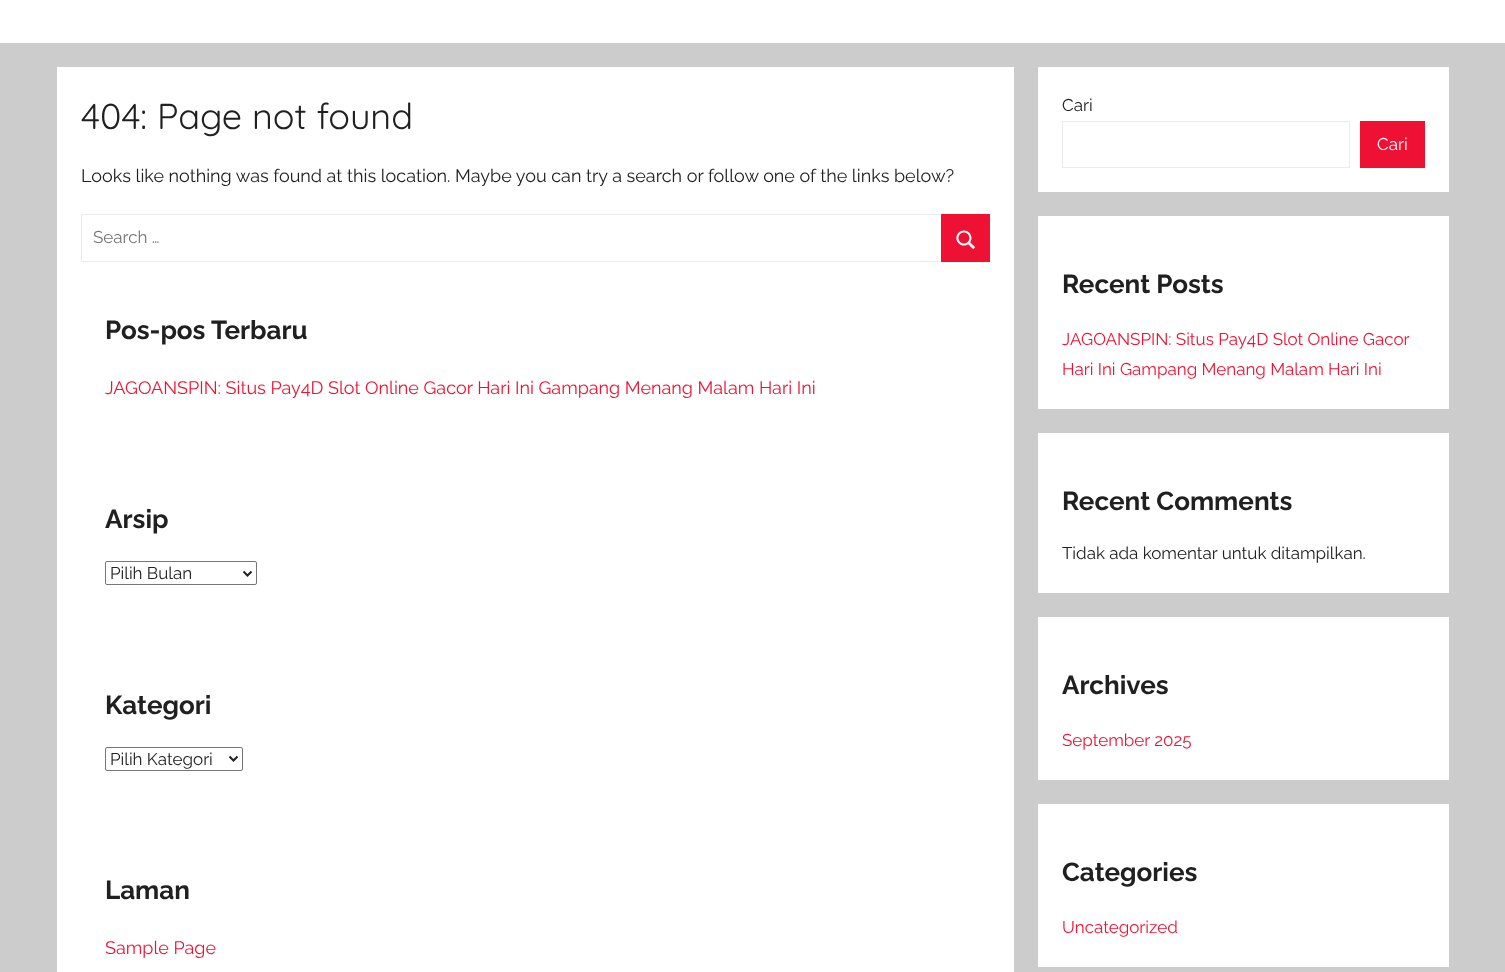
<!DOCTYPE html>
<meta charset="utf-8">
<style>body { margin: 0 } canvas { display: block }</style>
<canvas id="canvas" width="1505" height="972"></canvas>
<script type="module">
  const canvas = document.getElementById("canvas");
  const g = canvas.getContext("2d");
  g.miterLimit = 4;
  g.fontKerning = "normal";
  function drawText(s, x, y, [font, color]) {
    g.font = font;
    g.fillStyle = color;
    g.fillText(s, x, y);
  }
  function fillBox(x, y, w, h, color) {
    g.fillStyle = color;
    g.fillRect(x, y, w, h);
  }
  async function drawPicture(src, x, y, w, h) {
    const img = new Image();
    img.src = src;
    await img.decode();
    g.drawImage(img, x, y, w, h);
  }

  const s1 = ["36px Quicksand", "#202020"];
  const s2 = ["18px Raleway", "#202020"];
  const s3 = ["17px Raleway", "#757575"];
  const s4 = ["bold 26px Raleway", "#202020"];
  const s5 = ["18px Raleway", "#EE1133"];
  const s6 = ["17px Raleway", "#202020"];
  const s7 = ["17px Raleway", "#FFFFFF"];
  const s8 = ["17px Raleway", "#EE1133"];

  fillBox(0, 0, 1505, 972, "#CCCCCC");
  fillBox(0, 0, 1505, 43, "#FFFFFF");
  fillBox(57, 67, 957, 905, "#FFFFFF");
  drawText("404: Page not found", 81, 129, s1);
  drawText("Looks like nothing was found at this location. Maybe you can try a search or follow one of the links below?", 81, 182, s2);
  g.strokeStyle = "#ECECEC";
  g.strokeRect(81.5, 214.5, 908, 47);
  drawText("Search …", 93, 243, s3);
  fillBox(941, 214, 49, 48, "#EE1133");
  await drawPicture("pic1.png", 956, 230, 20, 20);
  drawText("Pos-pos Terbaru", 105, 339, s4);
  drawText("JAGOANSPIN: Situs Pay4D Slot Online Gacor Hari Ini Gampang Menang Malam Hari Ini", 105, 394, s5);
  drawText("Arsip", 105, 528, s4);
  g.beginPath();
  g.roundRect(105.5, 561.5, 151, 23, 1.5);
  g.strokeStyle = "#767676";
  g.stroke();
  g.beginPath();
  g.moveTo(243.5, 571.5);
  g.lineTo(247.5, 575.5);
  g.lineTo(251.5, 571.5);
  g.strokeStyle = "#202020";
  g.lineWidth = 2;
  g.stroke();
  drawText("Pilih Bulan", 110, 579, s6);
  drawText("Kategori", 105, 714, s4);
  g.beginPath();
  g.roundRect(105.5, 747.5, 137, 23, 1.5);
  g.strokeStyle = "#767676";
  g.lineWidth = 1;
  g.stroke();
  g.beginPath();
  g.moveTo(229.5, 756.5);
  g.lineTo(233.5, 760.5);
  g.lineTo(237.5, 756.5);
  g.strokeStyle = "#202020";
  g.lineWidth = 2;
  g.stroke();
  drawText("Pilih Kategori", 110, 765, s6);
  drawText("Laman", 105, 899, s4);
  drawText("Sample Page", 105, 954, s5);
  fillBox(1038, 67, 411, 125, "#FFFFFF");
  drawText("Cari", 1062, 111, s6);
  g.strokeStyle = "#ECECEC";
  g.lineWidth = 1;
  g.strokeRect(1062.5, 121.5, 287, 46);
  fillBox(1360, 121, 65, 47, "#EE1133");
  drawText("Cari", 1377, 150, s7);
  fillBox(1038, 216, 411, 193, "#FFFFFF");
  drawText("Recent Posts", 1062, 293, s4);
  drawText("JAGOANSPIN: Situs Pay4D Slot Online Gacor", 1062, 345, s8);
  drawText("Hari Ini Gampang Menang Malam Hari Ini", 1062, 375, s8);
  fillBox(1038, 433, 411, 160, "#FFFFFF");
  drawText("Recent Comments", 1062, 510, s4);
  drawText("Tidak ada komentar untuk ditampilkan.", 1062, 559, s6);
  fillBox(1038, 617, 411, 163, "#FFFFFF");
  drawText("Archives", 1062, 694, s4);
  drawText("September 2025", 1062, 746, s8);
  fillBox(1038, 804, 411, 163, "#FFFFFF");
  drawText("Categories", 1062, 881, s4);
  drawText("Uncategorized", 1062, 933, s8);
</script>
